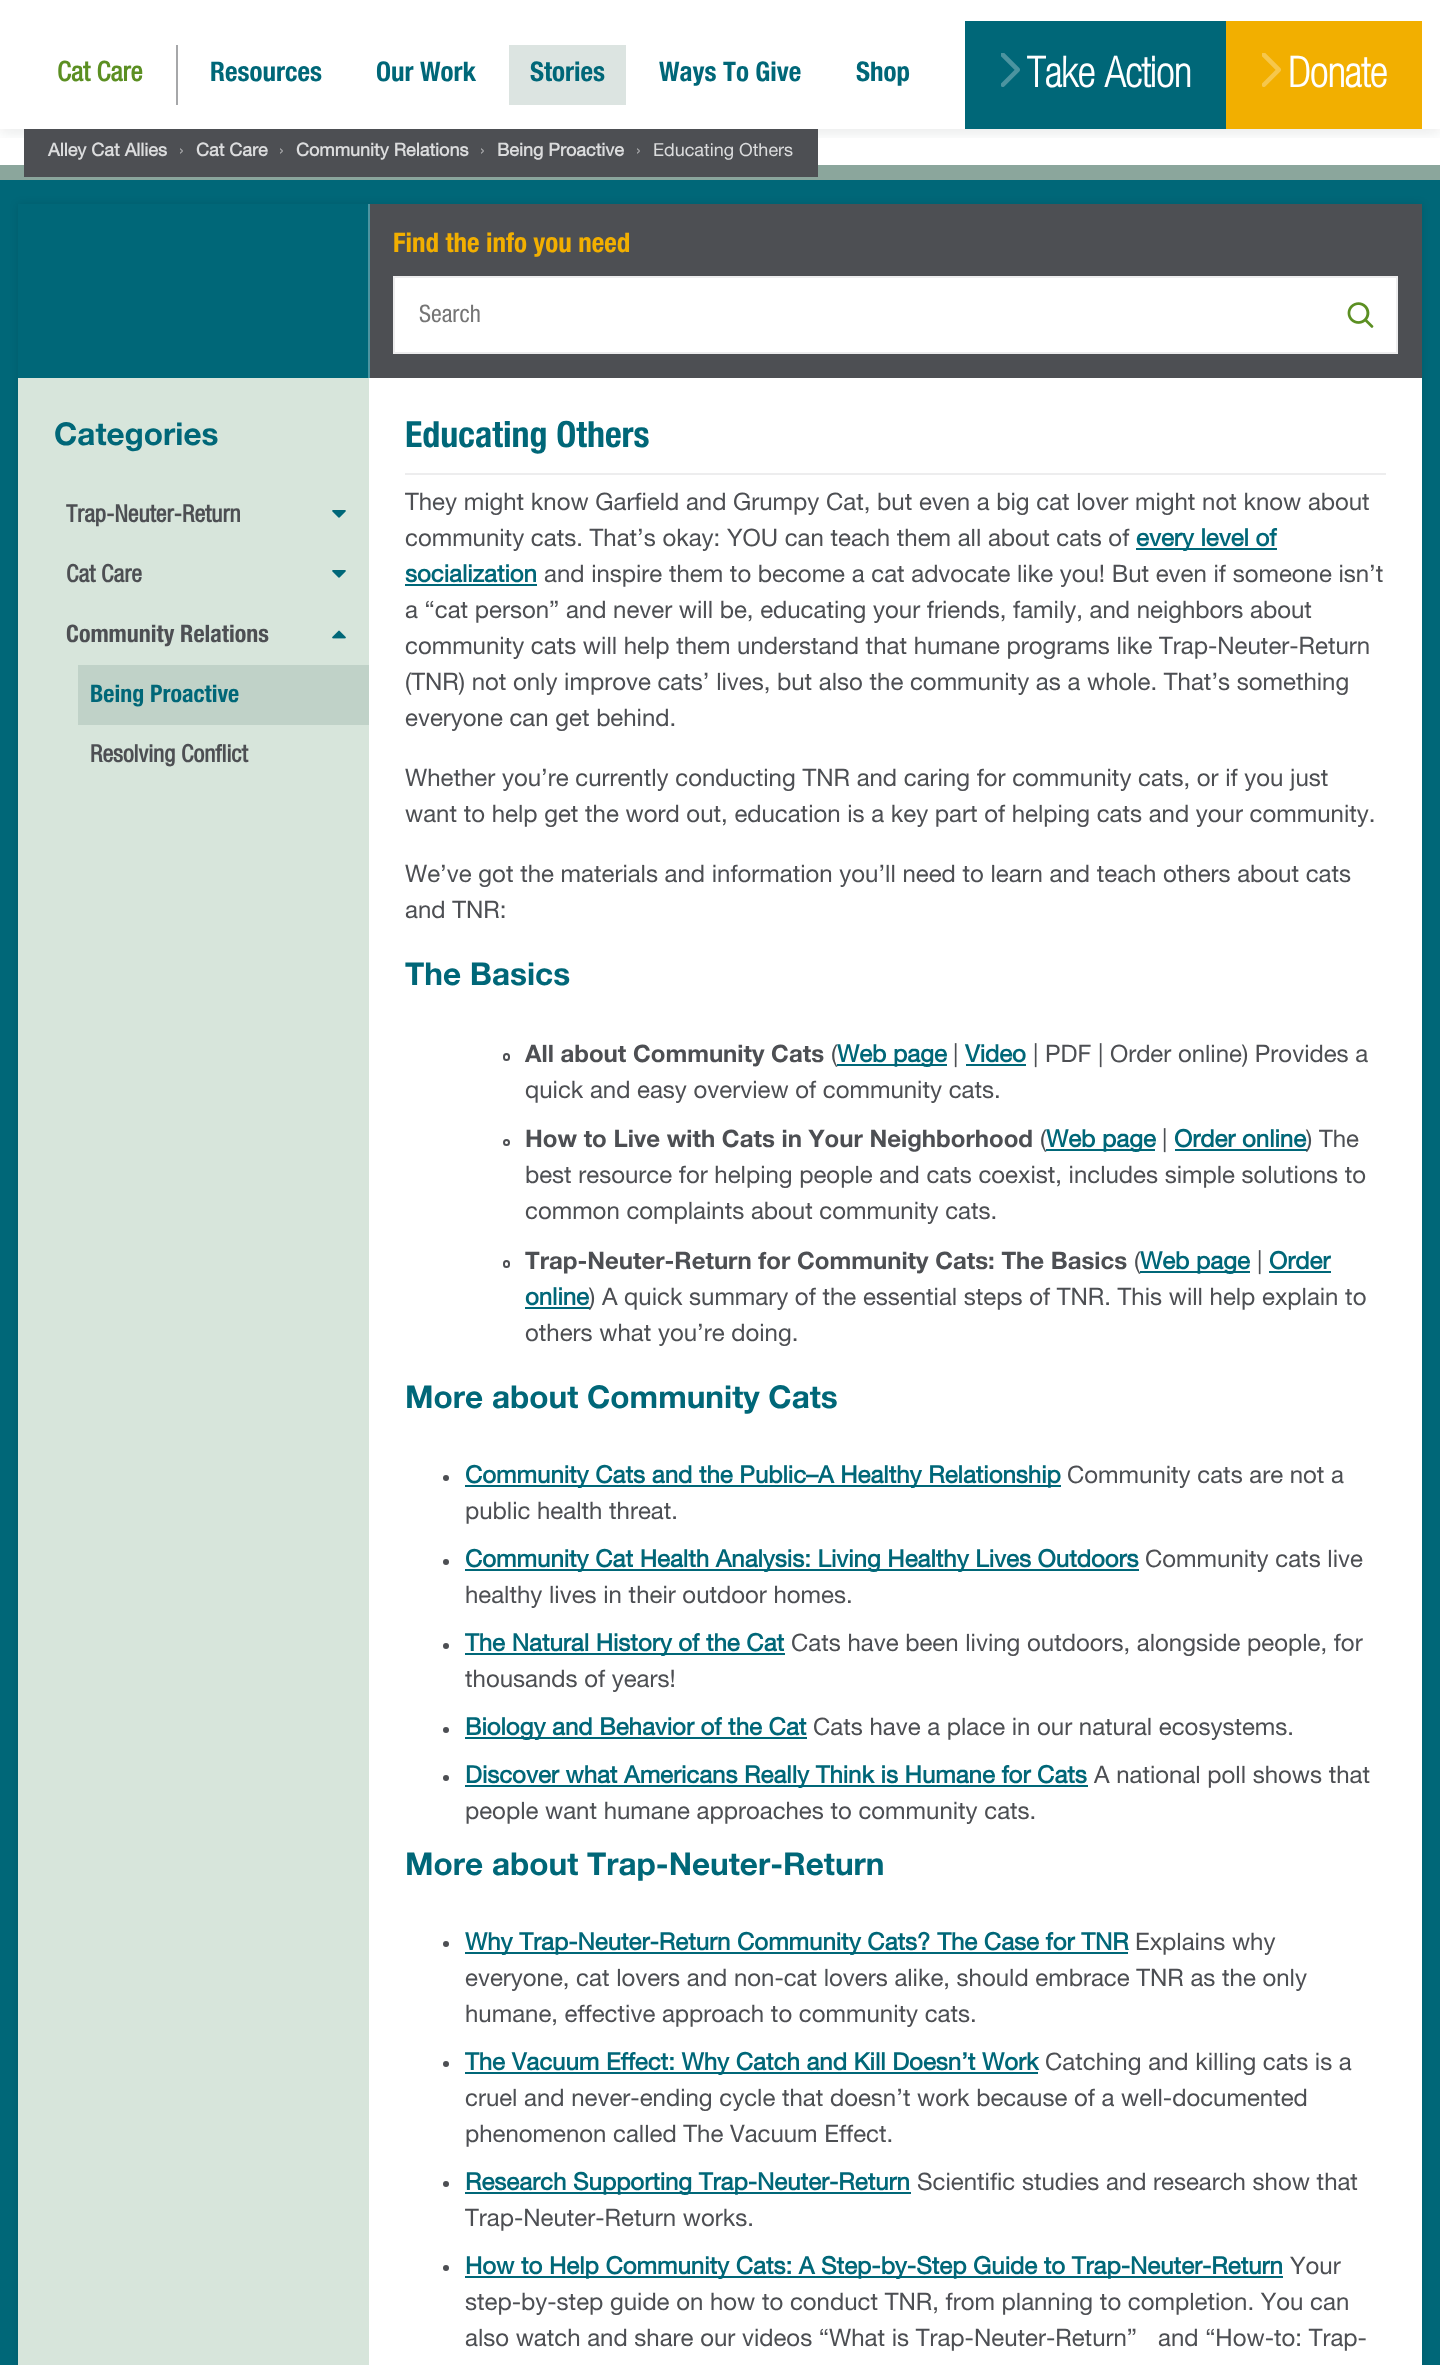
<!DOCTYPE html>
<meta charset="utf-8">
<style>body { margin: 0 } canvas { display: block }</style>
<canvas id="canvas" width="1440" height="2365"></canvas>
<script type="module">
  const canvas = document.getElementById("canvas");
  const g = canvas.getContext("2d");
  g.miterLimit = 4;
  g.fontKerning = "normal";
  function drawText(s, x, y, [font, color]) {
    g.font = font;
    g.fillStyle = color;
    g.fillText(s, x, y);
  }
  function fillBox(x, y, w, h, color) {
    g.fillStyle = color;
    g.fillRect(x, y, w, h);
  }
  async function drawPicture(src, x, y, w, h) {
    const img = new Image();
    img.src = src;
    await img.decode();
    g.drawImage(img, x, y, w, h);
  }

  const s1 = ["bold 27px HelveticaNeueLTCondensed", "#5B8F22"];
  const s2 = ["bold 27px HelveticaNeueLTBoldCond", "#006778"];
  const s3 = ["bold 42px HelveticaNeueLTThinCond", "#FFFFFF"];
  const s4 = ["bold 18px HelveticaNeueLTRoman", "#DBDCDD"];
  const s5 = ["18px HelveticaNeueLTRoman", "#A6A7A9"];
  const s6 = ["18px HelveticaNeueLTRoman", "#DBDCDD"];
  const s7 = ["bold 27px HelveticaNeueLTBoldCond", "#F2AF00"];
  const s8 = ["24px HelveticaNeueLTCondensed", "#757575"];
  const s9 = ["bold 31.5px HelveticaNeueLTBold", "#006778"];
  const s10 = ["bold 24px HelveticaNeueLTCondensed", "#4D4F53"];
  const s11 = ["bold 24px HelveticaNeueLTBoldCond", "#4D4F53"];
  const s12 = ["bold 24px HelveticaNeueLTBoldCond", "#006778"];
  const s13 = ["bold 36px HelveticaNeueLTBoldCond", "#006778"];
  const s14 = ["24px HelveticaNeueLTRoman", "#4D4F53"];
  const s15 = ["bold 24px HelveticaNeueLTRoman", "#006778"];
  const s16 = ["bold 24px HelveticaNeueLTBold", "#4D4F53"];

  fillBox(0, 0, 1440, 2365, "#FFFFFF");
  g.save();
  g.beginPath();
  g.rect(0, 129, 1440, 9);
  g.clip();
  g.fillStyle = "rgba(5, 29, 33, 0.1)";
  g.filter = "blur(7.5px)";
  g.beginPath();
  g.rect(0, -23, 1440, 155);
  g.fill();
  g.filter = "none";
  g.restore();
  fillBox(176, 45, 2, 60, "#A6A7A9");
  drawText("Cat Care", 57, 81, s1);
  drawText("Resources", 210, 81, s2);
  drawText("Our Work", 376, 81, s2);
  fillBox(509, 45, 117, 60, "#DCE4E1");
  drawText("Stories", 530, 81, s2);
  drawText("Ways To Give", 659, 81, s2);
  drawText("Shop", 856, 81, s2);
  fillBox(965, 21, 261, 108, "#006778");
  await drawPicture("pic1.png", 1001, 53, 19, 34);
  drawText("Take Action", 1027, 87, s3);
  fillBox(1226, 21, 196, 108, "#F2AF00");
  await drawPicture("pic2.png", 1262, 53, 19, 34);
  drawText("Donate", 1288, 87, s3);
  fillBox(0, 165, 1440, 15, "#8BA69C");
  fillBox(24, 129, 794, 48, "#4D4F53");
  drawText("Alley Cat Allies", 48, 156, s4);
  drawText("›", 179, 156, s5);
  drawText("Cat Care", 196, 156, s4);
  drawText("›", 279, 156, s5);
  drawText("Community Relations", 296, 156, s4);
  drawText("›", 480, 156, s5);
  drawText("Being Proactive", 497, 156, s4);
  drawText("›", 636, 156, s5);
  drawText("Educating Others", 653, 156, s6);
  fillBox(0, 180, 1440, 2185, "#006778");
  g.fillStyle = "rgba(0, 0, 0, 0.1)";
  g.filter = "blur(4px)";
  g.beginPath();
  g.rect(18, 204, 1404, 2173);
  g.fill();
  g.filter = "none";
  fillBox(369, 378, 1053, 1987, "#FFFFFF");
  fillBox(370, 204, 1052, 174, "#4D4F53");
  fillBox(18, 204, 350, 174, "#006778");
  fillBox(368, 204, 2, 174, "#4D95A1");
  drawText("Find the info you need", 393, 252, s7);
  g.fillStyle = "#FFFFFF";
  g.beginPath();
  g.rect(394, 277, 1003, 76);
  g.fill();
  g.strokeStyle = "#EDEDEE";
  g.lineWidth = 2;
  g.stroke();
  drawText("Search", 419, 322, s8);
  await drawPicture("pic3.png", 1347, 302, 27, 26);
  fillBox(18, 378, 351, 1987, "#D7E5DB");
  drawText("Categories", 54, 445, s9);
  drawText("Trap-Neuter-Return", 66, 522, s10);
  await drawPicture("pic4.png", 332, 510, 14, 8);
  drawText("Cat Care", 66, 582, s10);
  await drawPicture("pic4.png", 332, 570, 14, 8);
  drawText("Community Relations", 66, 642, s11);
  await drawPicture("pic5.png", 332, 630, 14, 9);
  fillBox(78, 665, 291, 60, "#C0D2C8");
  drawText("Being Proactive", 90, 702, s12);
  drawText("Resolving Conflict", 90, 762, s10);
  fillBox(405, 473, 981, 2, "#EDEDEE");
  drawText("Educating Others", 405, 447, s13);
  drawText("They might know Garfield and Grumpy Cat, but even a big cat lover might not know about", 405, 510, s14);
  drawText("community cats. That’s okay: YOU can teach them all about cats of", 405, 546, s14);
  fillBox(1136, 548, 141, 2, "#006778");
  drawText("every level of", 1136, 546, s15);
  drawText("socialization", 405, 582, s15);
  fillBox(405, 584, 132, 2, "#006778");
  drawText("and inspire them to become a cat advocate like you! But even if someone isn’t", 544, 582, s14);
  drawText("a “cat person” and never will be, educating your friends, family, and neighbors about", 405, 618, s14);
  drawText("community cats will help them understand that humane programs like Trap-Neuter-Return", 405, 654, s14);
  drawText("(TNR) not only improve cats’ lives, but also the community as a whole. That’s something", 405, 690, s14);
  drawText("everyone can get behind.", 405, 726, s14);
  drawText("Whether you’re currently conducting TNR and caring for community cats, or if you just", 405, 786, s14);
  drawText("want to help get the word out, education is a key part of helping cats and your community.", 405, 822, s14);
  drawText("We’ve got the materials and information you’ll need to learn and teach others about cats", 405, 882, s14);
  drawText("and TNR:", 405, 918, s14);
  drawText("The Basics", 405, 985, s9);
  g.beginPath();
  g.roundRect(504, 1054, 5, 6, 2.5);
  g.strokeStyle = "#4D4F53";
  g.stroke();
  drawText("All about Community Cats", 525, 1062, s16);
  drawText("(", 831, 1062, s14);
  fillBox(837, 1064, 110, 2, "#006778");
  drawText("Web page", 837, 1062, s15);
  drawText("|", 953, 1062, s14);
  drawText("Video", 965, 1062, s15);
  fillBox(966, 1064, 60, 2, "#006778");
  drawText("| PDF | Order online) Provides a", 1033, 1062, s14);
  drawText("quick and easy overview of community cats.", 525, 1098, s14);
  g.beginPath();
  g.arc(506.5, 1142.5, 2.5, 0, Math.PI * 2);
  g.stroke();
  drawText("How to Live with Cats in Your Neighborhood", 525, 1147, s16);
  drawText("(", 1040, 1147, s14);
  fillBox(1046, 1149, 109, 2, "#006778");
  drawText("Web page", 1046, 1147, s15);
  drawText("|", 1162, 1147, s14);
  drawText("Order online", 1174, 1147, s15);
  fillBox(1175, 1149, 132, 2, "#006778");
  drawText(") The", 1306, 1147, s14);
  drawText("best resource for helping people and cats coexist, includes simple solutions to", 525, 1183, s14);
  drawText("common complaints about community cats.", 525, 1219, s14);
  g.beginPath();
  g.roundRect(504, 1261, 5, 6, 2.5);
  g.stroke();
  drawText("Trap-Neuter-Return for Community Cats: The Basics", 525, 1269, s16);
  drawText("(", 1134, 1269, s14);
  fillBox(1140, 1271, 110, 2, "#006778");
  drawText("Web page", 1140, 1269, s15);
  drawText("|", 1257, 1269, s14);
  drawText("Order", 1269, 1269, s15);
  fillBox(1269, 1271, 62, 2, "#006778");
  drawText("online", 525, 1305, s15);
  fillBox(525, 1307, 65, 2, "#006778");
  drawText(") A quick summary of the essential steps of TNR. This will help explain to", 589, 1305, s14);
  drawText("others what you’re doing.", 525, 1341, s14);
  drawText("More about Community Cats", 405, 1408, s9);
  g.fillStyle = "#4D4F53";
  g.beginPath();
  g.arc(446, 1478, 3, 0, Math.PI * 2);
  g.fill();
  fillBox(465, 1485, 596, 2, "#006778");
  drawText("Community Cats and the Public–A Healthy Relationship", 465, 1483, s15);
  drawText("Community cats are not a", 1067, 1483, s14);
  drawText("public health threat.", 465, 1519, s14);
  g.beginPath();
  g.arc(446, 1562, 3, 0, Math.PI * 2);
  g.fill();
  fillBox(465, 1569, 674, 2, "#006778");
  drawText("Community Cat Health Analysis: Living Healthy Lives Outdoors", 465, 1567, s15);
  drawText("Community cats live", 1145, 1567, s14);
  drawText("healthy lives in their outdoor homes.", 465, 1603, s14);
  g.beginPath();
  g.arc(446, 1646, 3, 0, Math.PI * 2);
  g.fill();
  fillBox(465, 1653, 320, 2, "#006778");
  drawText("The Natural History of the Cat", 465, 1651, s15);
  drawText("Cats have been living outdoors, alongside people, for", 791, 1651, s14);
  drawText("thousands of years!", 465, 1687, s14);
  g.beginPath();
  g.arc(446, 1730, 3, 0, Math.PI * 2);
  g.fill();
  fillBox(465, 1737, 342, 2, "#006778");
  drawText("Biology and Behavior of the Cat", 465, 1735, s15);
  drawText("Cats have a place in our natural ecosystems.", 813, 1735, s14);
  g.beginPath();
  g.arc(446, 1778, 3, 0, Math.PI * 2);
  g.fill();
  fillBox(465, 1785, 623, 2, "#006778");
  drawText("Discover what Americans Really Think is Humane for Cats", 465, 1783, s15);
  drawText("A national poll shows that", 1094, 1783, s14);
  drawText("people want humane approaches to community cats.", 465, 1819, s14);
  drawText("More about Trap-Neuter-Return", 405, 1875, s9);
  g.fillStyle = "#4D4F53";
  g.beginPath();
  g.arc(446, 1944, 3, 0, Math.PI * 2);
  g.fill();
  fillBox(465, 1952, 663, 2, "#006778");
  drawText("Why Trap-Neuter-Return Community Cats? The Case for TNR", 465, 1950, s15);
  drawText("Explains why", 1135, 1950, s14);
  drawText("everyone, cat lovers and non-cat lovers alike, should embrace TNR as the only", 465, 1986, s14);
  drawText("humane, effective approach to community cats.", 465, 2022, s14);
  g.beginPath();
  g.arc(446, 2064, 3, 0, Math.PI * 2);
  g.fill();
  fillBox(465, 2072, 573, 2, "#006778");
  drawText("The Vacuum Effect: Why Catch and Kill Doesn’t Work", 465, 2070, s15);
  drawText("Catching and killing cats is a", 1045, 2070, s14);
  drawText("cruel and never-ending cycle that doesn’t work because of a well-documented", 465, 2106, s14);
  drawText("phenomenon called The Vacuum Effect.", 465, 2142, s14);
  g.beginPath();
  g.arc(446, 2184, 3, 0, Math.PI * 2);
  g.fill();
  fillBox(465, 2192, 446, 2, "#006778");
  drawText("Research Supporting Trap-Neuter-Return", 465, 2190, s15);
  drawText("Scientific studies and research show that", 917, 2190, s14);
  drawText("Trap-Neuter-Return works.", 465, 2226, s14);
  g.beginPath();
  g.arc(446, 2268, 3, 0, Math.PI * 2);
  g.fill();
  fillBox(465, 2276, 818, 2, "#006778");
  drawText("How to Help Community Cats: A Step-by-Step Guide to Trap-Neuter-Return", 465, 2274, s15);
  drawText("Your", 1290, 2274, s14);
  drawText("step-by-step guide on how to conduct TNR, from planning to completion. You can", 465, 2310, s14);
  drawText("also watch and share our videos “What is Trap-Neuter-Return”", 465, 2346, s14);
  drawText("and “How-to: Trap-", 1158, 2346, s14);
</script>
